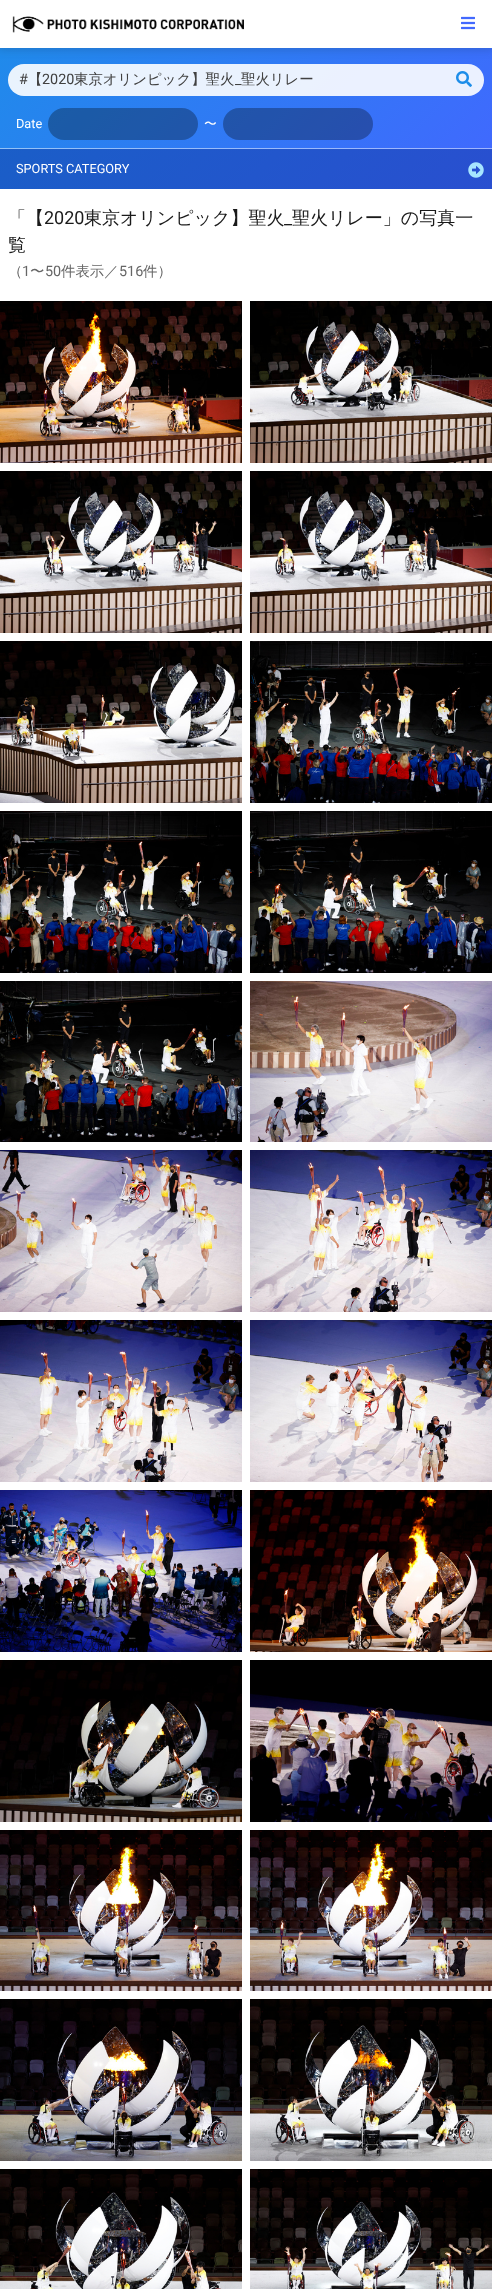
<!DOCTYPE html>
<meta charset="utf-8">
<style>body { margin: 0 } canvas { display: block }</style>
<canvas id="canvas" width="492" height="2289"></canvas>
<script type="module">
  const canvas = document.getElementById("canvas");
  const g = canvas.getContext("2d");
  g.miterLimit = 4;
  g.fontKerning = "normal";
  function drawText(s, x, y, [font, color]) {
    g.font = font;
    g.fillStyle = color;
    g.fillText(s, x, y);
  }
  function fillBox(x, y, w, h, color) {
    g.fillStyle = color;
    g.fillRect(x, y, w, h);
  }
  function fillRounded(x, y, w, h, r, color) {
    g.fillStyle = color;
    g.beginPath();
    g.roundRect(x, y, w, h, r);
    g.fill();
  }
  async function drawPicture(src, x, y, w, h) {
    const img = new Image();
    img.src = src;
    await img.decode();
    g.drawImage(img, x, y, w, h);
  }
  let gradient;

  const s1 = ["14.4px Roboto", "#414141"];
  const s2 = ["500 14.4px WenQuanYi Zen Hei", "#414141"];
  const s3 = ["12.75px Roboto", "#FFFFFF"];
  const s4 = ["500 12.75px WenQuanYi Zen Hei", "#FFFFFF"];
  const s5 = ["500 18px WenQuanYi Zen Hei", "#1A1A1A"];
  const s6 = ["18px Roboto", "#1A1A1A"];
  const s7 = ["500 14.4px WenQuanYi Zen Hei", "#666666"];
  const s8 = ["14.4px Roboto", "#666666"];

  fillBox(0, 0, 492, 2289, "#FFFFFF");
  gradient = g.createLinearGradient(76, -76, 416, 265);
  gradient.addColorStop(0, "#1D8DE9");
  gradient.addColorStop(1, "#4267FF");
  g.fillStyle = gradient;
  g.fillRect(0, 48, 492, 100);
  g.fillStyle = "rgba(26, 44, 69, 0.2)";
  g.filter = "blur(4px)";
  g.beginPath();
  g.rect(-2, -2, 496, 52);
  g.fill();
  g.filter = "none";
  fillBox(0, 0, 492, 48, "#FFFFFF");
  await drawPicture("pic1.png", 12, 16, 232, 17);
  await drawPicture("pic2.png", 461, 16, 14, 14);
  gradient = g.createLinearGradient(76, -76, 416, 265);
  gradient.addColorStop(0, "#1662C5");
  gradient.addColorStop(1, "#294FD0");
  g.fillStyle = gradient;
  g.fillRect(0, 149, 492, 40);
  gradient = g.createLinearGradient(76, -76, 416, 265);
  gradient.addColorStop(0, "#8EC6F4");
  gradient.addColorStop(1, "#A1B3FF");
  g.fillStyle = gradient;
  g.fillRect(0, 148, 492, 1);
  g.fillStyle = "rgba(255, 255, 255, 0.9)";
  g.beginPath();
  g.roundRect(8, 64, 436, 32, [16, 0, 0, 16]);
  g.fill();
  drawText("#", 19, 84, s1);
  drawText("【", 28, 84, s2);
  drawText("2020", 42, 84, s1);
  drawText("東京オリンピック】聖火", 74, 84, s2);
  drawText("_", 235, 84, s1);
  drawText("聖火リレー", 241, 84, s2);
  g.fillStyle = "rgba(255, 255, 255, 0.9)";
  g.beginPath();
  g.roundRect(444, 64, 40, 32, [0, 16, 16, 0]);
  g.fill();
  await drawPicture("pic3.png", 456, 71, 16, 16);
  drawText("Date", 16, 128, s3);
  fillRounded(48, 108, 150, 32, 16, "rgba(0, 0, 0, 0.3)");
  drawText("〜", 204, 128, s4);
  fillRounded(223, 108, 150, 32, 16, "rgba(0, 0, 0, 0.3)");
  drawText("SPORTS CATEGORY", 16, 173, s3);
  await drawPicture("pic4.png", 468, 162, 16, 16);
  drawText("「【", 8, 224, s5);
  drawText("2020", 44, 224, s6);
  drawText("東京オリンピック】聖火", 84, 224, s5);
  drawText("_", 284, 224, s6);
  drawText("聖火リレー」の写真一", 292, 224, s5);
  drawText("覧", 8, 251, s5);
  drawText("（", 8, 276, s7);
  drawText("1", 22, 276, s8);
  drawText("〜", 30, 276, s7);
  drawText("50", 45, 276, s8);
  drawText("件表示／", 61, 276, s7);
  drawText("516", 119, 276, s8);
  drawText("件）", 143, 276, s7);
  await drawPicture("pic5.png", 0, 301, 242, 162);
  await drawPicture("pic6.png", 250, 301, 242, 162);
  await drawPicture("pic7.png", 0, 471, 242, 162);
  await drawPicture("pic8.png", 250, 471, 242, 162);
  await drawPicture("pic9.png", 0, 641, 242, 162);
  await drawPicture("pic10.png", 250, 641, 242, 162);
  await drawPicture("pic11.png", 0, 811, 242, 162);
  await drawPicture("pic12.png", 250, 811, 242, 162);
  await drawPicture("pic13.png", 0, 981, 242, 161);
  await drawPicture("pic14.png", 250, 981, 242, 161);
  await drawPicture("pic15.png", 0, 1150, 242, 162);
  await drawPicture("pic16.png", 250, 1150, 242, 162);
  await drawPicture("pic17.png", 0, 1320, 242, 162);
  await drawPicture("pic18.png", 250, 1320, 242, 162);
  await drawPicture("pic19.png", 0, 1490, 242, 162);
  await drawPicture("pic20.png", 250, 1490, 242, 162);
  await drawPicture("pic21.png", 0, 1660, 242, 162);
  await drawPicture("pic22.png", 250, 1660, 242, 162);
  await drawPicture("pic23.png", 0, 1830, 242, 161);
  await drawPicture("pic24.png", 250, 1830, 242, 161);
  await drawPicture("pic25.png", 0, 1999, 242, 162);
  await drawPicture("pic26.png", 250, 1999, 242, 162);
  await drawPicture("pic27.png", 0, 2169, 242, 120);
  await drawPicture("pic28.png", 250, 2169, 242, 120);
</script>
